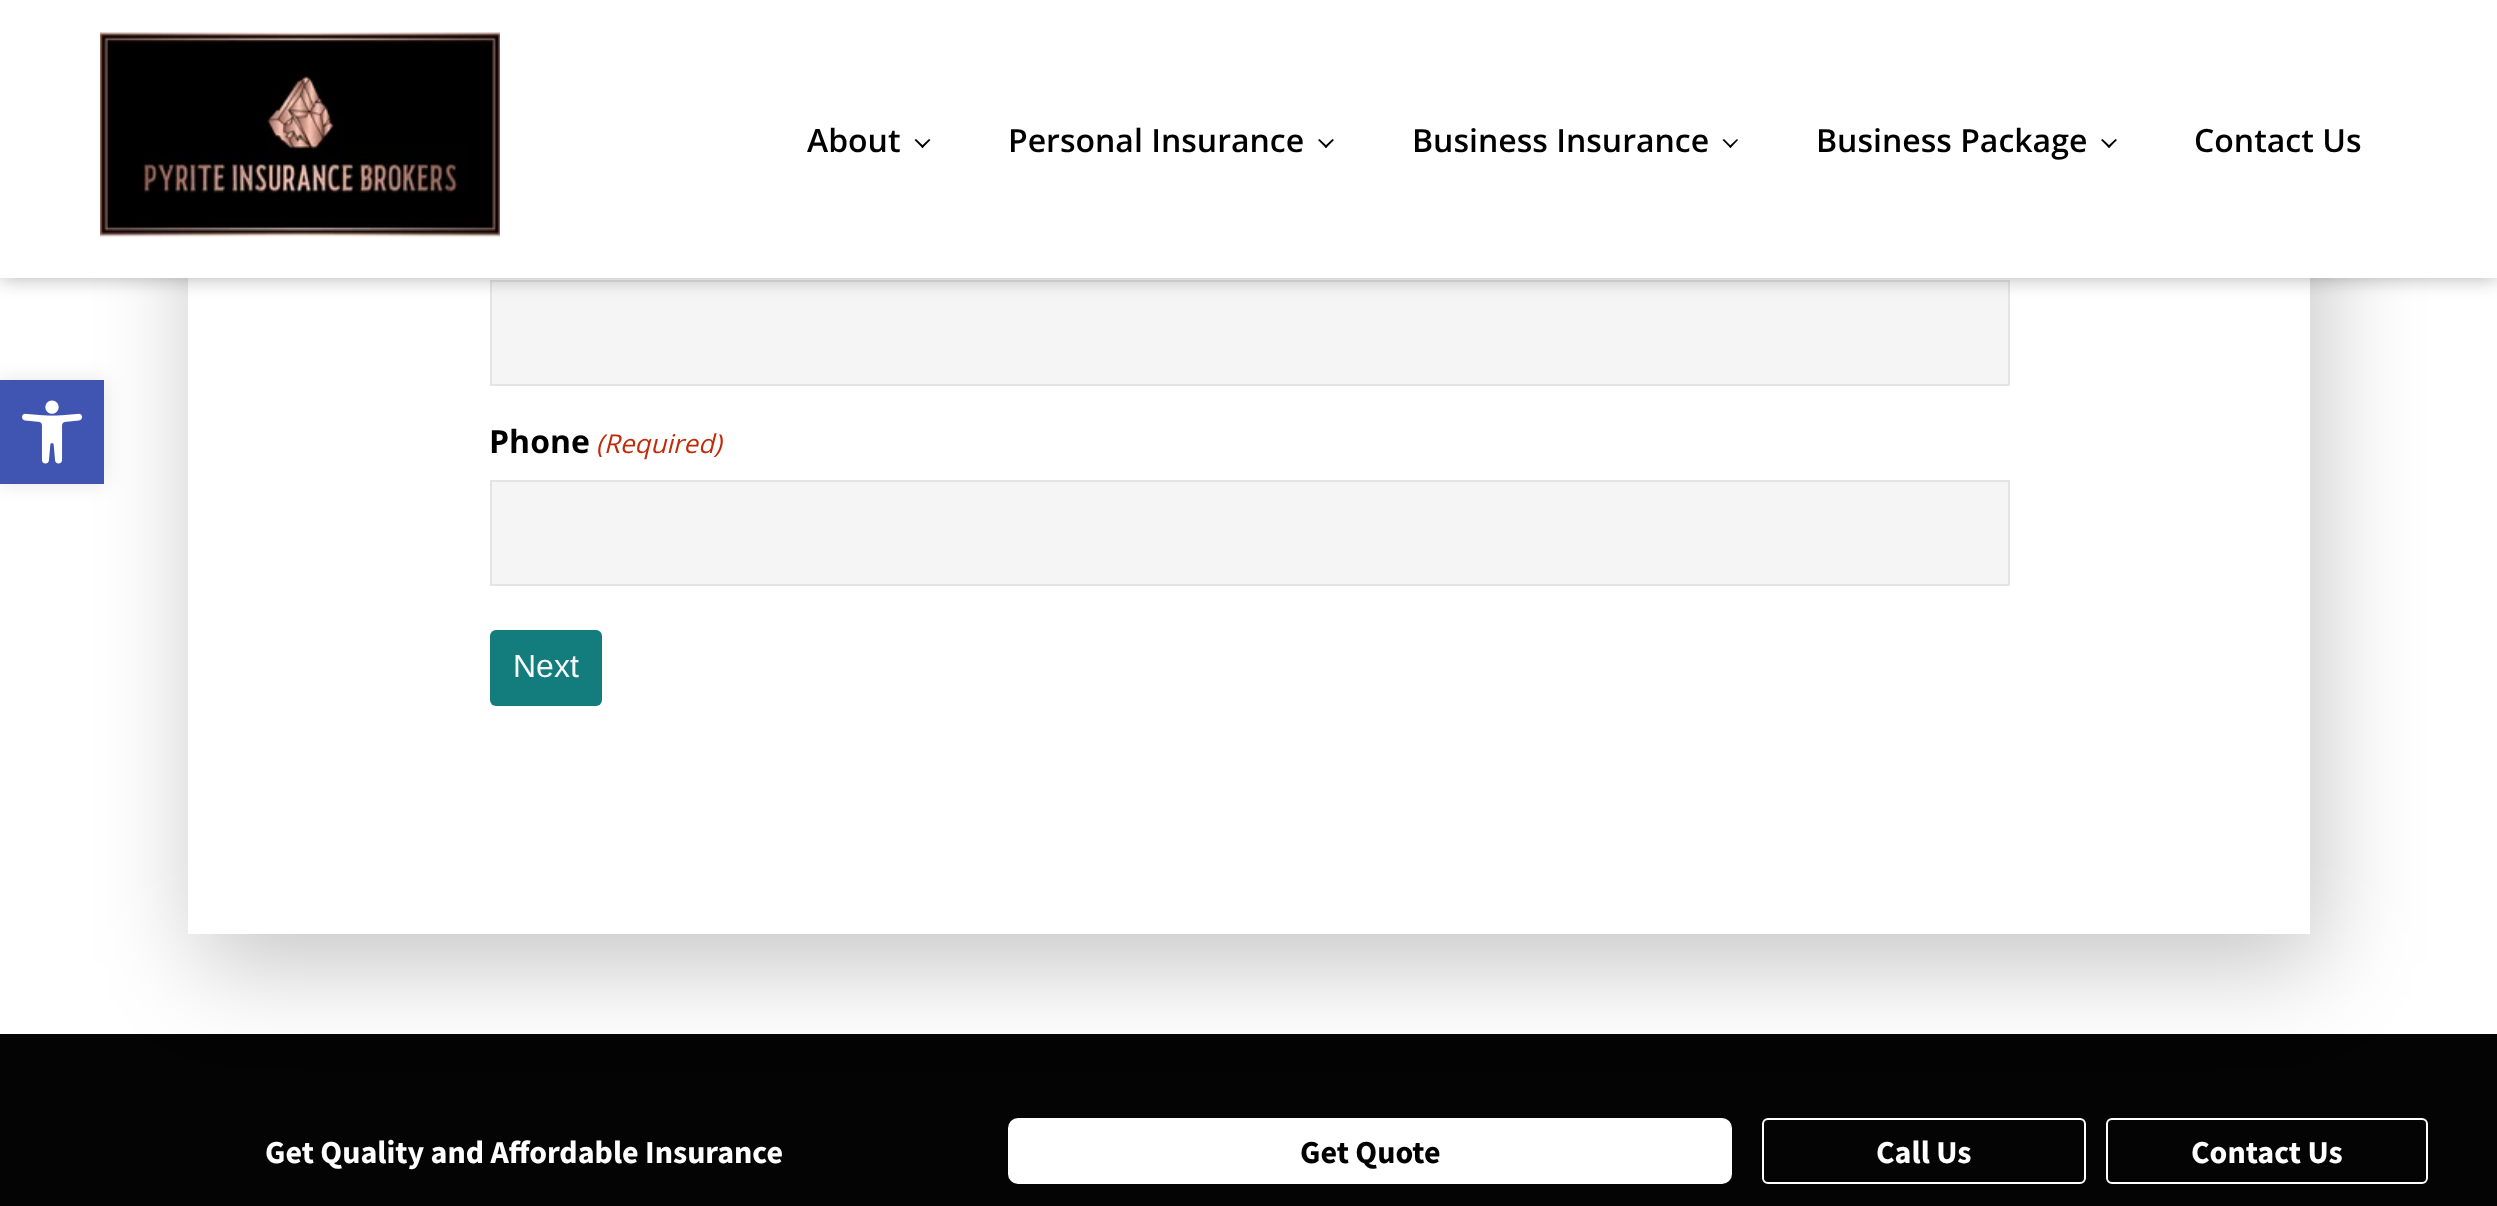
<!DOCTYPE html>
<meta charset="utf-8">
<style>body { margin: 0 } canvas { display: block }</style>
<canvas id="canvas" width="2497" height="1206"></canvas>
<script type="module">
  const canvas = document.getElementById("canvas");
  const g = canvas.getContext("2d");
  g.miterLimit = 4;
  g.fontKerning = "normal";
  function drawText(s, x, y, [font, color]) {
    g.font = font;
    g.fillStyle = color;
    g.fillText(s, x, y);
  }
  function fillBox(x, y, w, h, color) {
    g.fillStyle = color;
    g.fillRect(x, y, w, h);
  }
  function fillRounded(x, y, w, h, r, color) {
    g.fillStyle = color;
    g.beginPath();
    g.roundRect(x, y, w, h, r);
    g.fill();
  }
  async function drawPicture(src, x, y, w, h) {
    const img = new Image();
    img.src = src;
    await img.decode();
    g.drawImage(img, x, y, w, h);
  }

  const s1 = ["600 32px Open Sans", "#000000"];
  const s2 = ["bold 32px Open Sans", "#000000"];
  const s3 = ["italic 26px Open Sans", "#C02B0A"];
  const s4 = ["32px Liberation Sans", "#F7F7F7"];
  const s5 = ["bold 32px Source Sans Pro", "#FFFFFF"];
  const s6 = ["bold 32px Source Sans Pro", "#000000"];

  fillBox(0, 0, 2497, 1206, "#FFFFFF");
  fillBox(0, 1034, 2497, 62, "#040404");
  g.fillStyle = "rgba(0, 0, 0, 0.23)";
  g.filter = "blur(50px)";
  g.beginPath();
  g.rect(198, -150, 2122, 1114);
  g.fill();
  g.filter = "none";
  fillBox(188, 278, 2122, 656, "#FFFFFF");
  g.fillStyle = "#F5F5F5";
  g.beginPath();
  g.rect(491, 281, 1518, 104);
  g.fill();
  g.strokeStyle = "#E4E4E4";
  g.lineWidth = 2;
  g.stroke();
  g.fillStyle = "rgba(0, 0, 0, 0.3)";
  g.filter = "blur(10px)";
  g.beginPath();
  g.rect(0, 0, 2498, 278);
  g.fill();
  g.filter = "none";
  fillBox(0, 0, 2497, 278, "#FFFFFF");
  await drawPicture("pic1.png", 100, 32, 400, 206);
  drawText("About", 807, 152, s1);
  g.beginPath();
  g.moveTo(930.5, 140);
  g.lineTo(922.5, 148);
  g.lineTo(921, 146.5);
  g.lineTo(929, 139);
  g.closePath();
  g.fill();
  g.beginPath();
  g.moveTo(924, 146.5);
  g.lineTo(922.5, 148);
  g.lineTo(914.5, 140);
  g.lineTo(916, 139);
  g.closePath();
  g.fill();
  drawText("Personal Insurance", 1008, 152, s1);
  g.beginPath();
  g.moveTo(1334, 140);
  g.lineTo(1326, 148);
  g.lineTo(1324.5, 146.5);
  g.lineTo(1332.5, 139);
  g.closePath();
  g.fill();
  g.beginPath();
  g.moveTo(1327.5, 146.5);
  g.lineTo(1326, 148);
  g.lineTo(1318, 140);
  g.lineTo(1319.5, 139);
  g.closePath();
  g.fill();
  drawText("Business Insurance", 1412, 152, s1);
  g.beginPath();
  g.moveTo(1738, 140);
  g.lineTo(1730.5, 148);
  g.lineTo(1729, 146.5);
  g.lineTo(1737, 139);
  g.closePath();
  g.fill();
  g.beginPath();
  g.moveTo(1731.5, 146.5);
  g.lineTo(1730.5, 148);
  g.lineTo(1722.5, 140);
  g.lineTo(1724, 139);
  g.closePath();
  g.fill();
  drawText("Business Package", 1816, 152, s1);
  g.beginPath();
  g.moveTo(2117, 140);
  g.lineTo(2109, 148);
  g.lineTo(2107.5, 146.5);
  g.lineTo(2115.5, 139);
  g.closePath();
  g.fill();
  g.beginPath();
  g.moveTo(2110.5, 146.5);
  g.lineTo(2109, 148);
  g.lineTo(2101, 140);
  g.lineTo(2102.5, 139);
  g.closePath();
  g.fill();
  drawText("Contact Us", 2194, 152, s1);
  g.fillStyle = "rgba(0, 0, 0, 0.1)";
  g.filter = "blur(10px)";
  g.beginPath();
  g.rect(0, 380, 104, 104);
  g.fill();
  g.filter = "none";
  fillBox(0, 380, 104, 104, "#4054B2");
  await drawPicture("pic2.png", 22, 400, 61, 64);
  drawText("Phone", 489, 453, s2);
  drawText("(Required)", 596, 453, s3);
  g.fillStyle = "#F5F5F5";
  g.beginPath();
  g.rect(491, 481, 1518, 104);
  g.fill();
  g.stroke();
  fillRounded(490, 630, 112, 76, 6, "#137D7D");
  drawText("Next", 513, 677, s4);
  fillBox(0, 1096, 2497, 110, "#040404");
  drawText("Get Quality and Affordable Insurance", 265, 1163, s5);
  fillRounded(1008, 1118, 724, 66, 10, "#FFFFFF");
  drawText("Get Quote", 1300, 1163, s6);
  g.beginPath();
  g.roundRect(1763, 1119, 322, 64, 5);
  g.strokeStyle = "#FFFFFF";
  g.stroke();
  drawText("Call Us", 1876, 1163, s5);
  g.beginPath();
  g.roundRect(2107, 1119, 320, 64, 5);
  g.stroke();
  drawText("Contact Us", 2191, 1163, s5);
</script>
